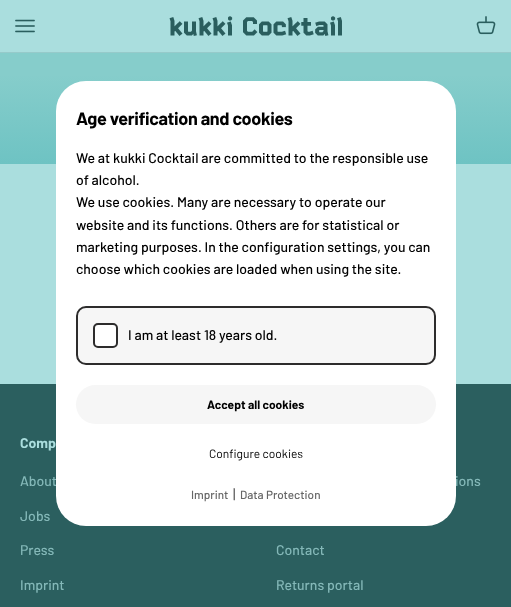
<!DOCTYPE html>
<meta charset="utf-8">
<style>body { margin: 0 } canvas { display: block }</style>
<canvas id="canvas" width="511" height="607"></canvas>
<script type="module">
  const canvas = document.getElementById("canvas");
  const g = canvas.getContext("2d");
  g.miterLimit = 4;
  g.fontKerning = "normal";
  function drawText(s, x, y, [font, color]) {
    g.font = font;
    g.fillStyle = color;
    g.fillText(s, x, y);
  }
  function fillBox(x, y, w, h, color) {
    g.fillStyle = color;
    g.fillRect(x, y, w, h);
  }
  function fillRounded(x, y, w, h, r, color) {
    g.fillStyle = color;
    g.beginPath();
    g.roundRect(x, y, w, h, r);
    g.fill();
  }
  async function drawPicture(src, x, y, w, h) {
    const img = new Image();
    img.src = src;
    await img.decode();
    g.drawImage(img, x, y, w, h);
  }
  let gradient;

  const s1 = ["500 14px Barlow", "#84B8B8"];
  const s2 = ["bold 18px Barlow", "#000000"];
  const s3 = ["500 14px Barlow", "#000000"];
  const s4 = ["bold 12px Barlow", "#000000"];
  const s5 = ["12px Barlow", "#000000"];
  const s6 = ["500 11.75px Barlow", "#666666"];
  const s7 = ["500 14px Barlow", "#666666"];
  const s8 = ["bold 14px Barlow", "#AADEDE"];

  fillBox(0, 0, 511, 607, "#AADEDE");
  fillBox(0, 52, 511, 1, "#96CACA");
  await drawPicture("pic1.png", 15, 19, 20, 14);
  await drawPicture("pic2.png", 169, 16, 173, 20);
  await drawPicture("pic3.png", 476, 16, 20, 19);
  gradient = g.createLinearGradient(256, 164, 256, 52);
  gradient.addColorStop(0, "#6EC3C3");
  gradient.addColorStop(0.8, "#86CDCB");
  g.fillStyle = gradient;
  g.fillRect(0, 53, 511, 111);
  fillBox(0, 384, 511, 223, "#2B5F5F");
  drawText("About", 20, 486, s1);
  drawText("ions", 455, 486, s1);
  fillRounded(56, 81, 400, 445, 30, "#FFFFFF");
  g.letterSpacing = "-0.35px";
  drawText("Age verification and cookies", 76, 125, s2);
  g.letterSpacing = "0px";
  drawText("We at kukki Cocktail are committed to the responsible use", 76, 163, s3);
  drawText("of alcohol.", 76, 185, s3);
  drawText("We use cookies. Many are necessary to operate our", 76, 207, s3);
  drawText("website and its functions. Others are for statistical or", 76, 230, s3);
  drawText("marketing purposes. In the configuration settings, you can", 76, 252, s3);
  drawText("choose which cookies are loaded when using the site.", 76, 274, s3);
  g.fillStyle = "#F6F6F6";
  g.beginPath();
  g.roundRect(77, 307, 358, 57, 9);
  g.fill();
  g.strokeStyle = "#2D2C2C";
  g.lineWidth = 2;
  g.stroke();
  g.fillStyle = "#FFFFFF";
  g.beginPath();
  g.roundRect(94, 324, 23, 23, 4);
  g.fill();
  g.stroke();
  drawText("I am at least 18 years old.", 128, 340, s3);
  fillRounded(76, 385, 360, 39, 19.5, "#F6F6F6");
  drawText("Accept all cookies", 207, 409, s4);
  drawText("Configure cookies", 209, 458, s5);
  drawText("Imprint", 191, 499, s6);
  drawText("|", 233, 499, s7);
  drawText("Data Protection", 240, 499, s6);
  drawText("Comp", 20, 448, s8);
  drawText("Jobs", 20, 521, s1);
  drawText("Press", 20, 555, s1);
  drawText("Imprint", 20, 590, s1);
  drawText("Contact", 276, 555, s1);
  drawText("Returns portal", 276, 590, s1);
</script>
